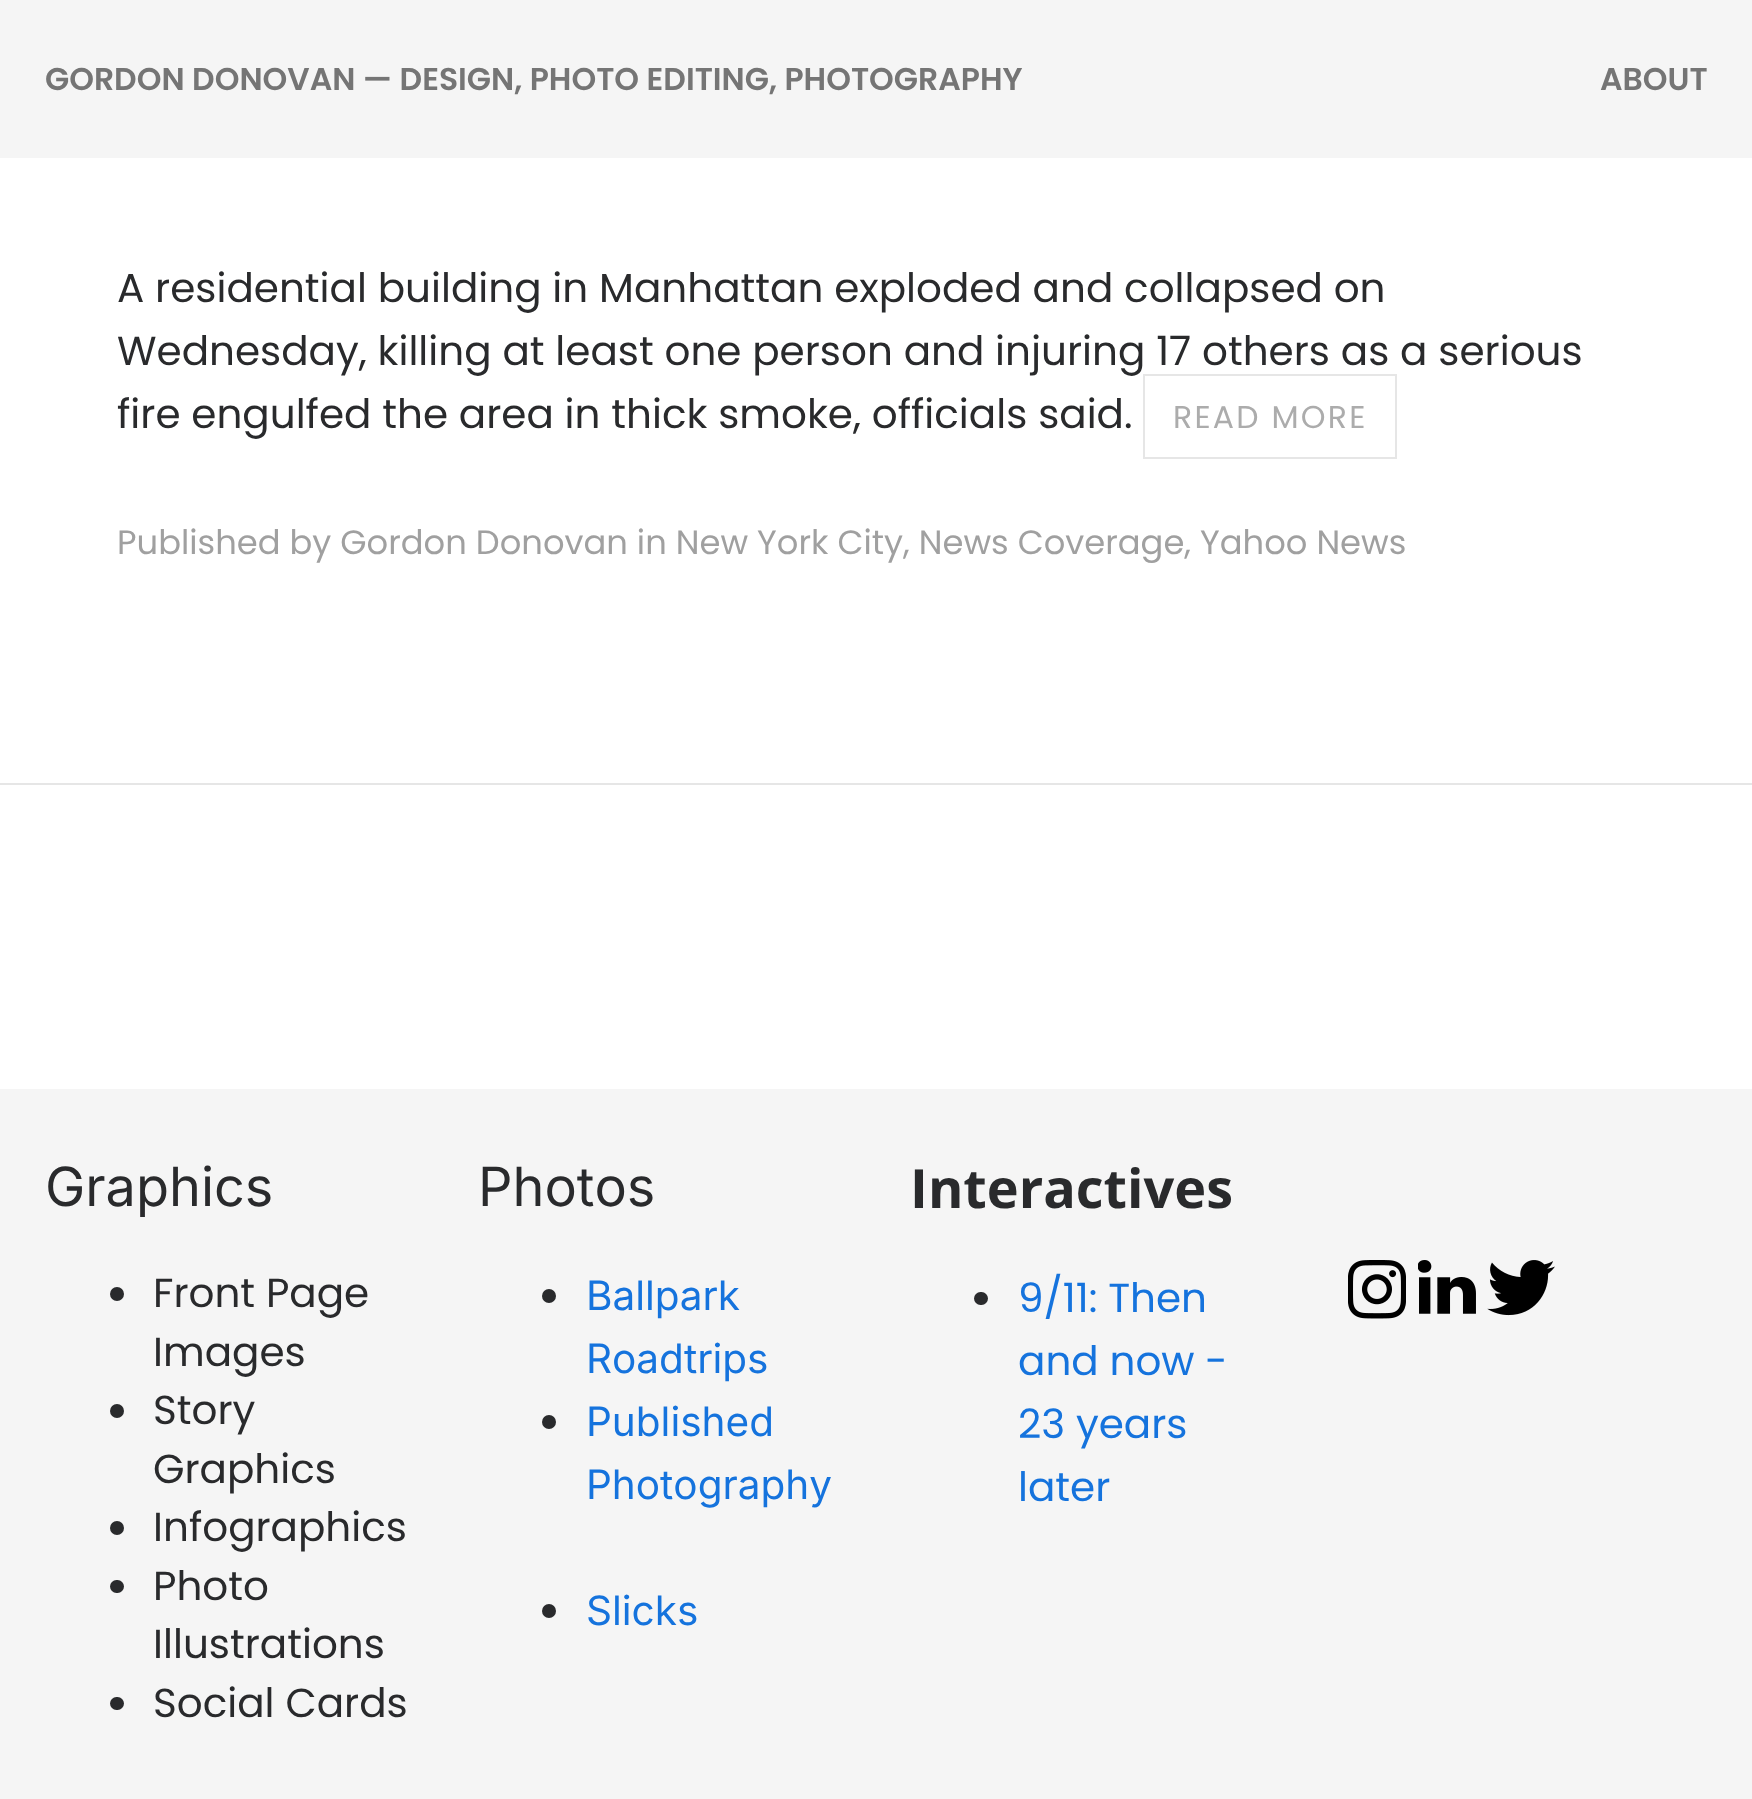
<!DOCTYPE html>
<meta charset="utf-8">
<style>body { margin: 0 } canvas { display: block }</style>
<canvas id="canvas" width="1752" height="1799"></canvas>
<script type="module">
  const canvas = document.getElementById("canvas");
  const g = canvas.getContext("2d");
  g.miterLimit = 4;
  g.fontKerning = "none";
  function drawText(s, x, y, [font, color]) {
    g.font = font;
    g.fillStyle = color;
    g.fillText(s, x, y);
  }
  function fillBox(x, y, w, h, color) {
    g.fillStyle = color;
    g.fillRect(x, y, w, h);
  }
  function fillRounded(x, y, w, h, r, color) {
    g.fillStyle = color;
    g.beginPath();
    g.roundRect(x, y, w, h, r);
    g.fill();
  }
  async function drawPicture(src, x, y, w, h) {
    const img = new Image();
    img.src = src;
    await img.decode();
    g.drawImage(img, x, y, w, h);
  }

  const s1 = ["600 31.5px Poppins", "#757575"];
  const s2 = ["40.5px Poppins", "#292A2C"];
  const s3 = ["31.5px Poppins", "#ACACAC"];
  const s4 = ["33.75px Poppins", "#A0A0A0"];
  const s5 = ["54px Inter", "#292A2C"];
  const s6 = ["40.5px Inter", "#1573DD"];
  const s7 = ["bold 54px Open Sans", "#292A2C"];
  const s8 = ["40.5px Poppins", "#1573DD"];

  fillBox(0, 0, 1752, 1799, "#FFFFFF");
  fillBox(0, 0, 1752, 158, "#F5F5F5");
  drawText("GORDON DONOVAN — DESIGN, PHOTO EDITING, PHOTOGRAPHY", 45, 90, s1);
  drawText("ABOUT", 1600, 90, s1);
  drawText("A residential building in Manhattan exploded and collapsed on", 117, 302, s2);
  drawText("Wednesday, killing at least one person and injuring 17 others as a serious", 117, 365, s2);
  drawText("fire engulfed the area in thick smoke, officials said.", 117, 428, s2);
  g.strokeStyle = "#E6E6E6";
  g.lineWidth = 2;
  g.strokeRect(1144, 375, 252, 83);
  g.letterSpacing = "2.25px";
  drawText("READ MORE", 1173, 428, s3);
  g.letterSpacing = "0px";
  drawText("Published by Gordon Donovan in New York City, News Coverage, Yahoo News", 117, 554, s4);
  fillBox(0, 783, 1752, 2, "#E6E6E6");
  fillBox(0, 1089, 1752, 710, "#F5F5F5");
  drawText("Graphics", 45, 1206, s5);
  g.beginPath();
  g.arc(117, 1294, 7, 0, Math.PI * 2);
  g.fill();
  drawText("Front Page", 153, 1307, s2);
  drawText("Images", 153, 1366, s2);
  g.beginPath();
  g.arc(117, 1411, 7, 0, Math.PI * 2);
  g.fill();
  drawText("Story", 153, 1424, s2);
  drawText("Graphics", 153, 1483, s2);
  g.beginPath();
  g.arc(117, 1528, 7, 0, Math.PI * 2);
  g.fill();
  drawText("Infographics", 153, 1541, s2);
  fillRounded(110, 1580, 14, 13, 6.5, "#292A2C");
  drawText("Photo", 153, 1600, s2);
  drawText("Illustrations", 153, 1658, s2);
  fillRounded(110, 1697, 14, 13, 6.5, "#292A2C");
  drawText("Social Cards", 153, 1717, s2);
  drawText("Photos", 478, 1206, s5);
  g.beginPath();
  g.arc(549, 1296, 7, 0, Math.PI * 2);
  g.fill();
  drawText("Ballpark", 586, 1310, s6);
  drawText("Roadtrips", 586, 1373, s6);
  g.fillStyle = "#292A2C";
  g.beginPath();
  g.arc(549, 1422, 7, 0, Math.PI * 2);
  g.fill();
  drawText("Published", 586, 1436, s6);
  drawText("Photography", 586, 1499, s6);
  g.fillStyle = "#292A2C";
  g.beginPath();
  g.arc(549, 1611, 7, 0, Math.PI * 2);
  g.fill();
  drawText("Slicks", 586, 1625, s6);
  drawText("Interactives", 910, 1208, s7);
  fillRounded(974, 1292, 14, 13, 6.5, "#292A2C");
  drawText("9/11: Then", 1018, 1312, s8);
  drawText("and now -", 1018, 1375, s8);
  drawText("23 years", 1018, 1438, s8);
  drawText("later", 1018, 1501, s8);
  await drawPicture("pic1.png", 1348, 1260, 58, 59);
  await drawPicture("pic2.png", 1418, 1260, 58, 54);
  await drawPicture("pic3.png", 1487, 1260, 68, 56);
</script>
